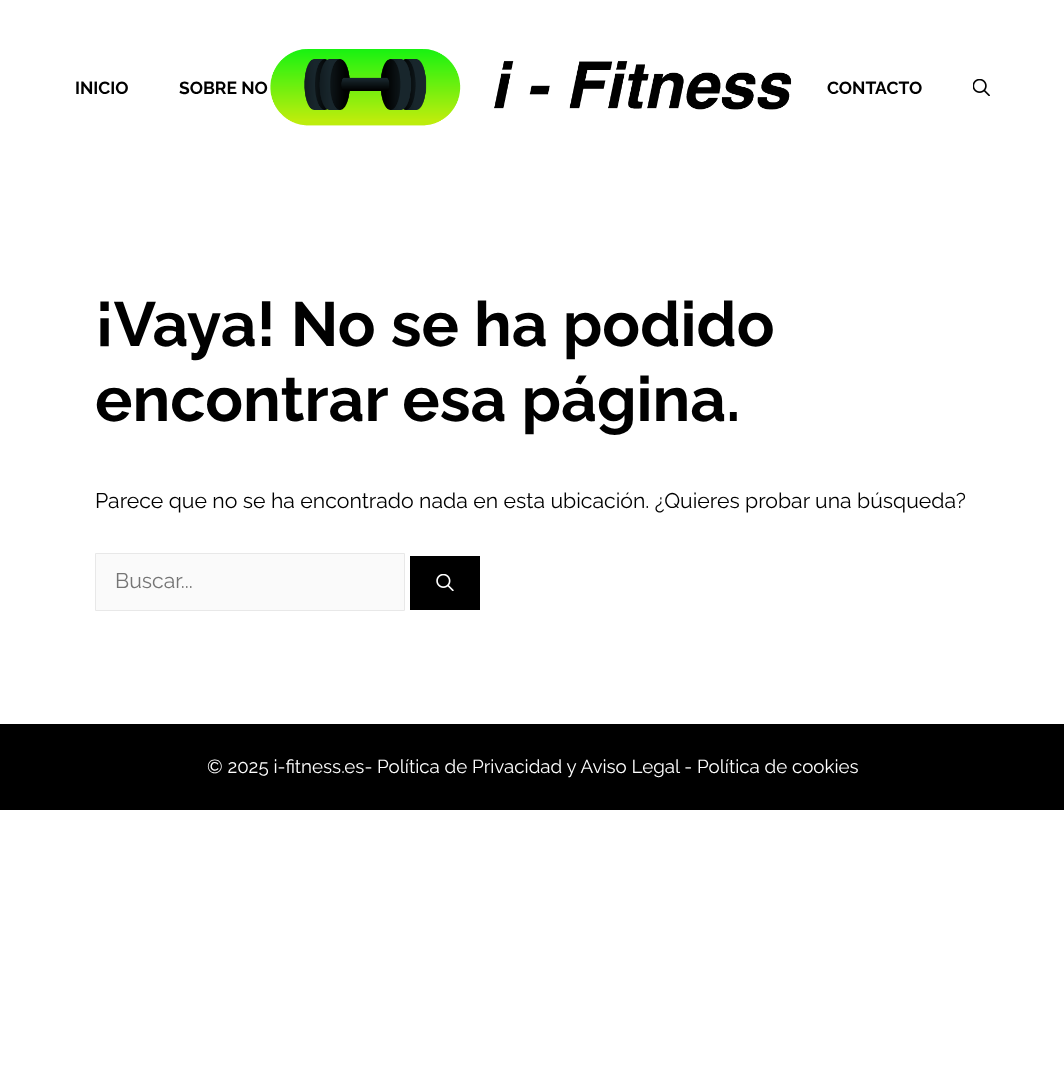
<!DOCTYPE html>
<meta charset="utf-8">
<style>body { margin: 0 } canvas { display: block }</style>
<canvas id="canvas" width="1064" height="1074"></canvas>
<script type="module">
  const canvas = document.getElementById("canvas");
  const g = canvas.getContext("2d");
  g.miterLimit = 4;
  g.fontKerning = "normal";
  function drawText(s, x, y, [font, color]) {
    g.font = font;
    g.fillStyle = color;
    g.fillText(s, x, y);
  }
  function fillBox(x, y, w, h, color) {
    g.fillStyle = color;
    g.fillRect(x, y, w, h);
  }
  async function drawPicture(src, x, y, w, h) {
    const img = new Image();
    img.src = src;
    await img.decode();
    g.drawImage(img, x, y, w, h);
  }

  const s1 = ["bold 17.5px Raleway", "#000000"];
  const s2 = ["bold 62.5px Raleway", "#000000"];
  const s3 = ["21.25px Raleway", "#000000"];
  const s4 = ["21.25px Raleway", "#757575"];
  const s5 = ["18.75px Raleway", "#FFFFFF"];

  fillBox(0, 0, 1064, 1074, "#FFFFFF");
  await drawPicture("pic1.png", 270, 49, 522, 77);
  drawText("INICIO", 75, 94, s1);
  drawText("SOBRE NO", 179, 94, s1);
  drawText("CONTACTO", 827, 94, s1);
  await drawPicture("pic2.png", 973, 79, 17, 17);
  drawText("¡Vaya! No se ha podido", 95, 346, s2);
  drawText("encontrar esa página.", 95, 421, s2);
  drawText("Parece que no se ha encontrado nada en esta ubicación. ¿Quieres probar una búsqueda?", 95, 508, s3);
  g.fillStyle = "#FAFAFA";
  g.beginPath();
  g.rect(95.5, 553.5, 309, 57);
  g.fill();
  g.strokeStyle = "#E8E8E8";
  g.stroke();
  drawText("Buscar...", 115, 588, s4);
  fillBox(410, 556, 70, 54, "#000000");
  await drawPicture("pic3.png", 436, 574, 18, 17);
  fillBox(0, 724, 1064, 86, "#000000");
  drawText("© 2025 i-fitness.es- Política de Privacidad y Aviso Legal - Política de cookies", 207, 773, s5);
</script>
